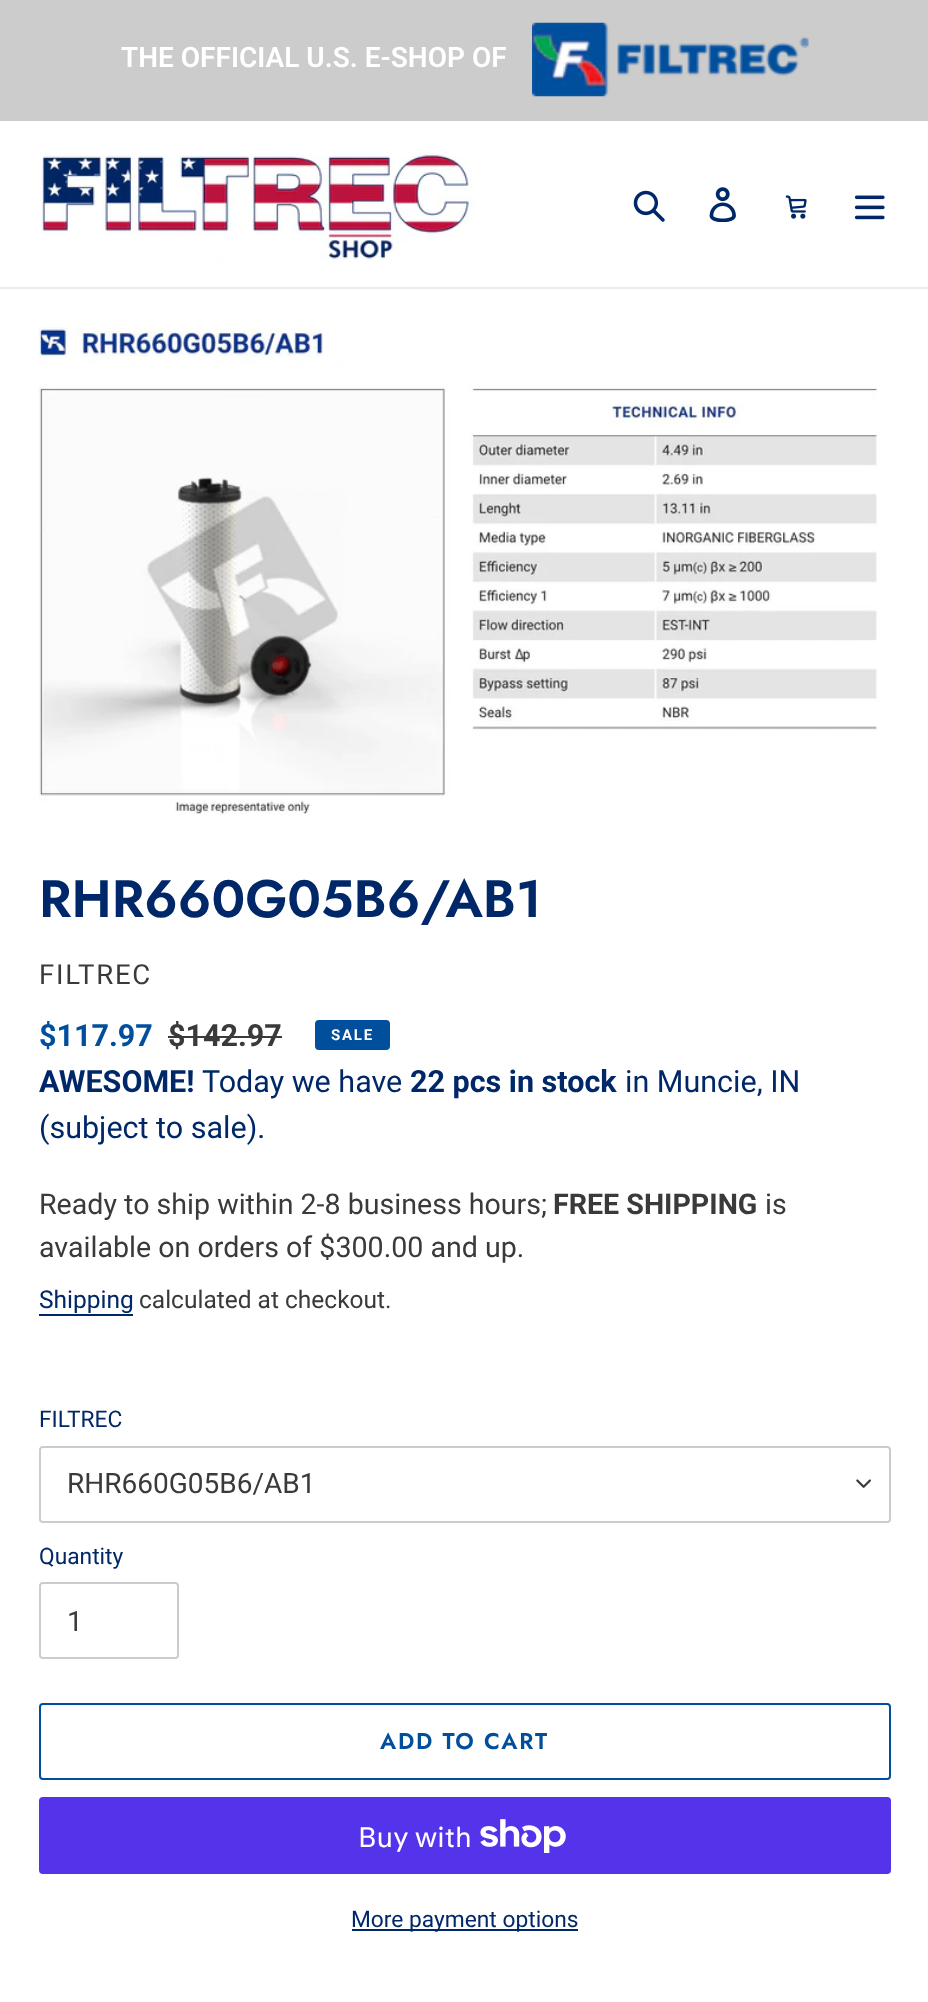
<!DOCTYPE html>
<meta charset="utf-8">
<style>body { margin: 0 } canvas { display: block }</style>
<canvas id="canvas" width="928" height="2002"></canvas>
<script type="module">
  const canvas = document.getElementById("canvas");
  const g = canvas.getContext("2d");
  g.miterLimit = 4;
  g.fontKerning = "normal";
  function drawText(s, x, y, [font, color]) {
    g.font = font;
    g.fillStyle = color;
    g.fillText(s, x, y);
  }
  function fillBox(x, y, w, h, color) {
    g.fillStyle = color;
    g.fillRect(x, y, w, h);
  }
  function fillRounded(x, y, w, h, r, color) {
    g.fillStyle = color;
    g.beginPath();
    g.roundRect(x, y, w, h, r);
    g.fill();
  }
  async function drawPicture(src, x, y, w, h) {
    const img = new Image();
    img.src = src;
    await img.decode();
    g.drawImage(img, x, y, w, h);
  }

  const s1 = ["600 28px Roboto", "#FFFFFF"];
  const s2 = ["600 52.5px Jost", "#002868"];
  const s3 = ["27.5px Roboto", "#3A3A3A"];
  const s4 = ["bold 30.5px Roboto", "#004F9D"];
  const s5 = ["bold 30.5px Roboto", "#3A3A3A"];
  const s6 = ["bold 15px Roboto", "#FFFFFF"];
  const s7 = ["bold 30.5px Roboto", "#002868"];
  const s8 = ["30.5px Roboto", "#002868"];
  const s9 = ["28.6px Roboto", "#3A3A3A"];
  const s10 = ["bold 28.6px Roboto", "#3A3A3A"];
  const s11 = ["24.5px Roboto", "#002868"];
  const s12 = ["24.5px Roboto", "#3A3A3A"];
  const s13 = ["22.75px Roboto", "#002868"];
  const s14 = ["28px Roboto", "#3A3A3A"];
  const s15 = ["600 22.75px Jost", "#004F9D"];
  const s16 = ["28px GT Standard", "#FFFFFF"];

  fillBox(0, 0, 928, 2002, "#FFFFFF");
  fillBox(0, 0, 928, 121, "#CCCCCC");
  drawText("THE OFFICIAL U.S. E-SHOP OF", 121, 67, s1);
  await drawPicture("pic1.png", 532, 22, 277, 75);
  fillBox(0, 287, 928, 2, "#EBEBEB");
  await drawPicture("pic2.png", 40, 149, 436, 112);
  await drawPicture("pic3.png", 633, 190, 32, 32);
  await drawPicture("pic4.png", 709, 187, 27, 35);
  await drawPicture("pic5.png", 785, 195, 22, 24);
  await drawPicture("pic6.png", 854, 195, 31, 25);
  await drawPicture("pic7.png", 38, 327, 839, 488);
  drawText("RHR660G05B6/AB1", 39, 917, s2);
  g.letterSpacing = "1.75px";
  drawText("FILTREC", 39, 984, s3);
  g.letterSpacing = "0px";
  drawText("$117.97", 39, 1046, s4);
  drawText("$142.97", 168, 1046, s5);
  fillBox(168, 1036, 114, 2, "#3A3A3A");
  g.fillStyle = "#004F9D";
  g.beginPath();
  g.roundRect(316, 1021, 73, 28, 3);
  g.fill();
  g.strokeStyle = "#004F9D";
  g.lineWidth = 2;
  g.stroke();
  g.letterSpacing = "1.75px";
  drawText("SALE", 331, 1040, s6);
  g.letterSpacing = "0px";
  drawText("AWESOME!", 39, 1092, s7);
  drawText("Today we have", 202, 1092, s8);
  drawText("22 pcs in stock", 410, 1092, s7);
  drawText("in Muncie, IN", 625, 1092, s8);
  drawText("(subject to sale).", 39, 1138, s8);
  drawText("Ready to ship within 2-8 business hours;", 39, 1214, s9);
  drawText("FREE SHIPPING", 553, 1214, s10);
  drawText("is", 765, 1214, s9);
  drawText("available on orders of $300.00 and up.", 39, 1257, s9);
  drawText("Shipping", 39, 1308, s11);
  fillBox(39, 1314, 94, 2, "#002868");
  drawText("calculated at checkout.", 139, 1308, s12);
  drawText("FILTREC", 39, 1427, s13);
  await drawPicture("pic8.png", 856, 1479, 15, 9);
  g.beginPath();
  g.roundRect(40, 1447, 850, 75, 3);
  g.strokeStyle = "#CCCCCC";
  g.stroke();
  drawText("RHR660G05B6/AB1", 67, 1493, s14);
  drawText("Quantity", 39, 1564, s13);
  g.beginPath();
  g.roundRect(40, 1583, 138, 75, 3);
  g.stroke();
  drawText("1", 67, 1631, s14);
  g.beginPath();
  g.roundRect(40, 1704, 850, 75, 3);
  g.strokeStyle = "#004F9D";
  g.stroke();
  g.letterSpacing = "1.75px";
  drawText("ADD TO CART", 380, 1749, s15);
  fillRounded(39, 1797, 852, 77, 4, "#5433EB");
  g.letterSpacing = "0px";
  drawText("Buy with", 358, 1847, s16);
  await drawPicture("pic9.png", 480, 1819, 86, 34);
  fillBox(352, 1929, 226, 2, "#002868");
  drawText("More payment options", 351, 1927, s13);
</script>
